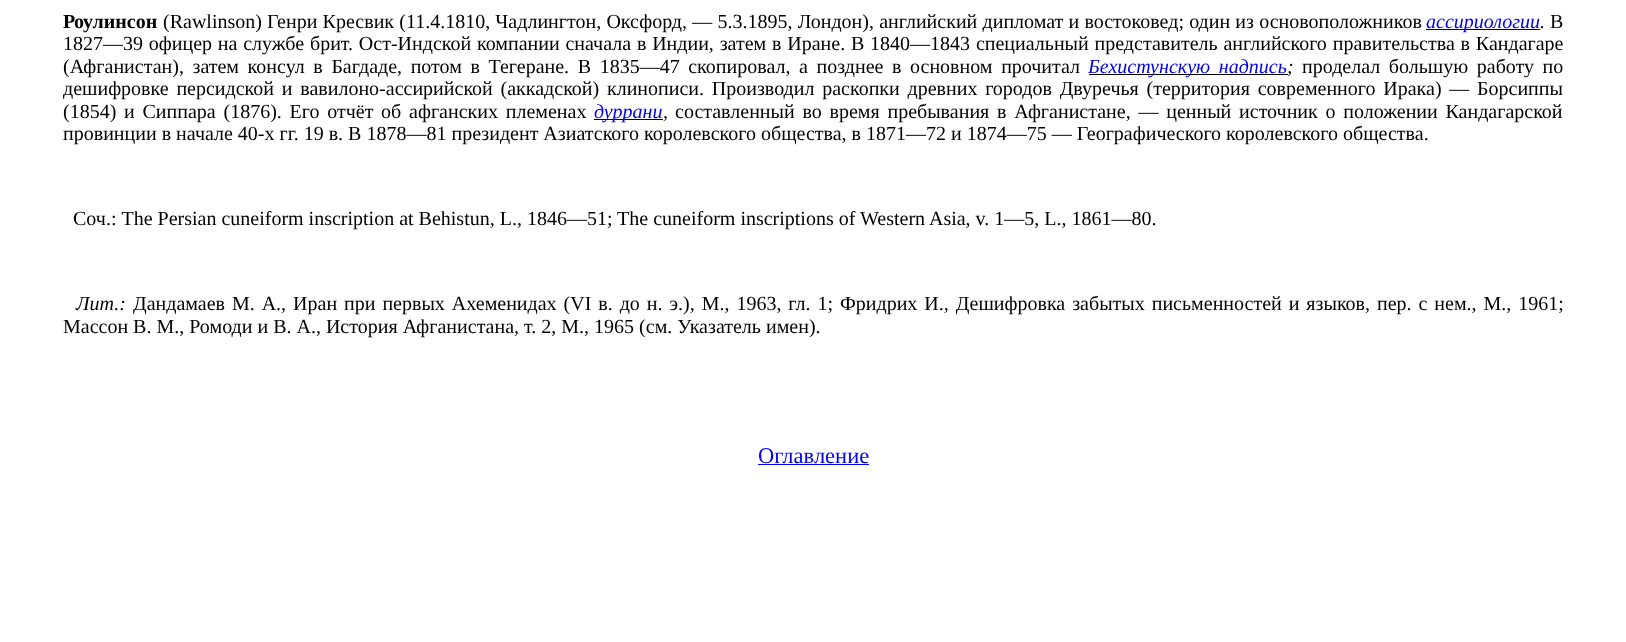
<!DOCTYPE html>
<meta charset="utf-8">
<style>body { margin: 0 } canvas { display: block }</style>
<canvas id="canvas" width="1626" height="642"></canvas>
<script type="module">
  const canvas = document.getElementById("canvas");
  const g = canvas.getContext("2d");
  g.miterLimit = 4;
  g.fontKerning = "normal";
  function drawText(s, x, y, [font, color]) {
    g.font = font;
    g.fillStyle = color;
    g.fillText(s, x, y);
  }
  function fillBox(x, y, w, h, color) {
    g.fillStyle = color;
    g.fillRect(x, y, w, h);
  }

  const s1 = ["bold 20px Liberation Serif", "#000000"];
  const s2 = ["20px Liberation Serif", "#000000"];
  const s3 = ["italic 20px Liberation Serif", "#0000EE"];
  const s4 = ["italic 20px Liberation Serif", "#000000"];
  const s5 = ["22.5px Liberation Serif", "#0000EE"];

  fillBox(0, 0, 1626, 642, "#FFFFFF");
  drawText("Р", 63, 28, s1);
  drawText("о", 74, 28, s1);
  drawText("улинсон", 83, 28, s1);
  g.wordSpacing = "0.2px";
  drawText("(Rawlinson) Генри Кресвик (11.4.1810, Чадлингтон, Оксфорд, — 5.3.1895, Лондон), английский дипломат и востоковед; один из основоположников", 163, 28, s2);
  fillBox(1426, 29, 114, 1, "#000000");
  g.wordSpacing = "0px";
  drawText("ассириологии", 1426, 28, s3);
  drawText(".", 1540, 28, s4);
  drawText("В", 1550, 28, s2);
  g.wordSpacing = "0.8px";
  drawText("1827—39 офицер на службе брит. Ост-Индской компании сначала в Индии, затем в Иране. В 1840—1843 специальный представитель английского правительства в Кандагаре", 63, 50, s2);
  g.wordSpacing = "3.6px";
  drawText("(Афганистан), затем консул в Багдаде, потом в Тегеране. В 1835—47 скопировал, а позднее в основном прочитал", 63, 73, s2);
  fillBox(1089, 74, 199, 1, "#000000");
  drawText("Бехистунскую надпись", 1088, 73, s3);
  g.wordSpacing = "0px";
  drawText(";", 1287, 73, s4);
  g.wordSpacing = "3.6px";
  drawText("проделал большую работу по", 1302, 73, s2);
  g.wordSpacing = "2.75px";
  drawText("дешифровке персидской и вавилоно-ассирийской (аккадской) клинописи. Производил раскопки древних городов Двуречья (территория современного Ирака) — Борсиппы", 63, 95, s2);
  drawText("(1854) и Сиппара (1876). Его отчёт об афганских племенах", 63, 118, s2);
  fillBox(594, 119, 69, 1, "#000000");
  g.wordSpacing = "0px";
  drawText("дуррани", 594, 118, s3);
  drawText(",", 663, 118, s4);
  g.wordSpacing = "2.75px";
  drawText("составленный во время пребывания в Афганистане, — ценный источник о положении Кандагарской", 675, 118, s2);
  g.wordSpacing = "0px";
  drawText("провинции в начале 40-х гг. 19 в. В 1878—81 президент Азиатского королевского общества, в 1871—72 и 1874—75 — Географического королевского общества.", 63, 140, s2);
  drawText("Соч.: The Persian cuneiform inscription at Behistun, L., 1846—51; The cuneiform inscriptions of Western Asia, v. 1—5, L., 1861—80.", 73, 225, s2);
  drawText("Лит.:", 76, 310, s4);
  g.wordSpacing = "1.95px";
  drawText("Дандамаев М. А., Иран при первых Ахеменидах (VI в. до н. э.), М., 1963, гл. 1; Фридрих И., Дешифровка забытых письменностей и языков, пер. с нем., М., 1961;", 133, 310, s2);
  g.wordSpacing = "0px";
  drawText("Массон В. М., Ромоди и В. А., История Афганистана, т. 2, М., 1965 (см. Указатель имен).", 63, 333, s2);
  drawText("Оглавление", 758, 463, s5);
  fillBox(758, 464, 111, 1, "#0000EE");
</script>
